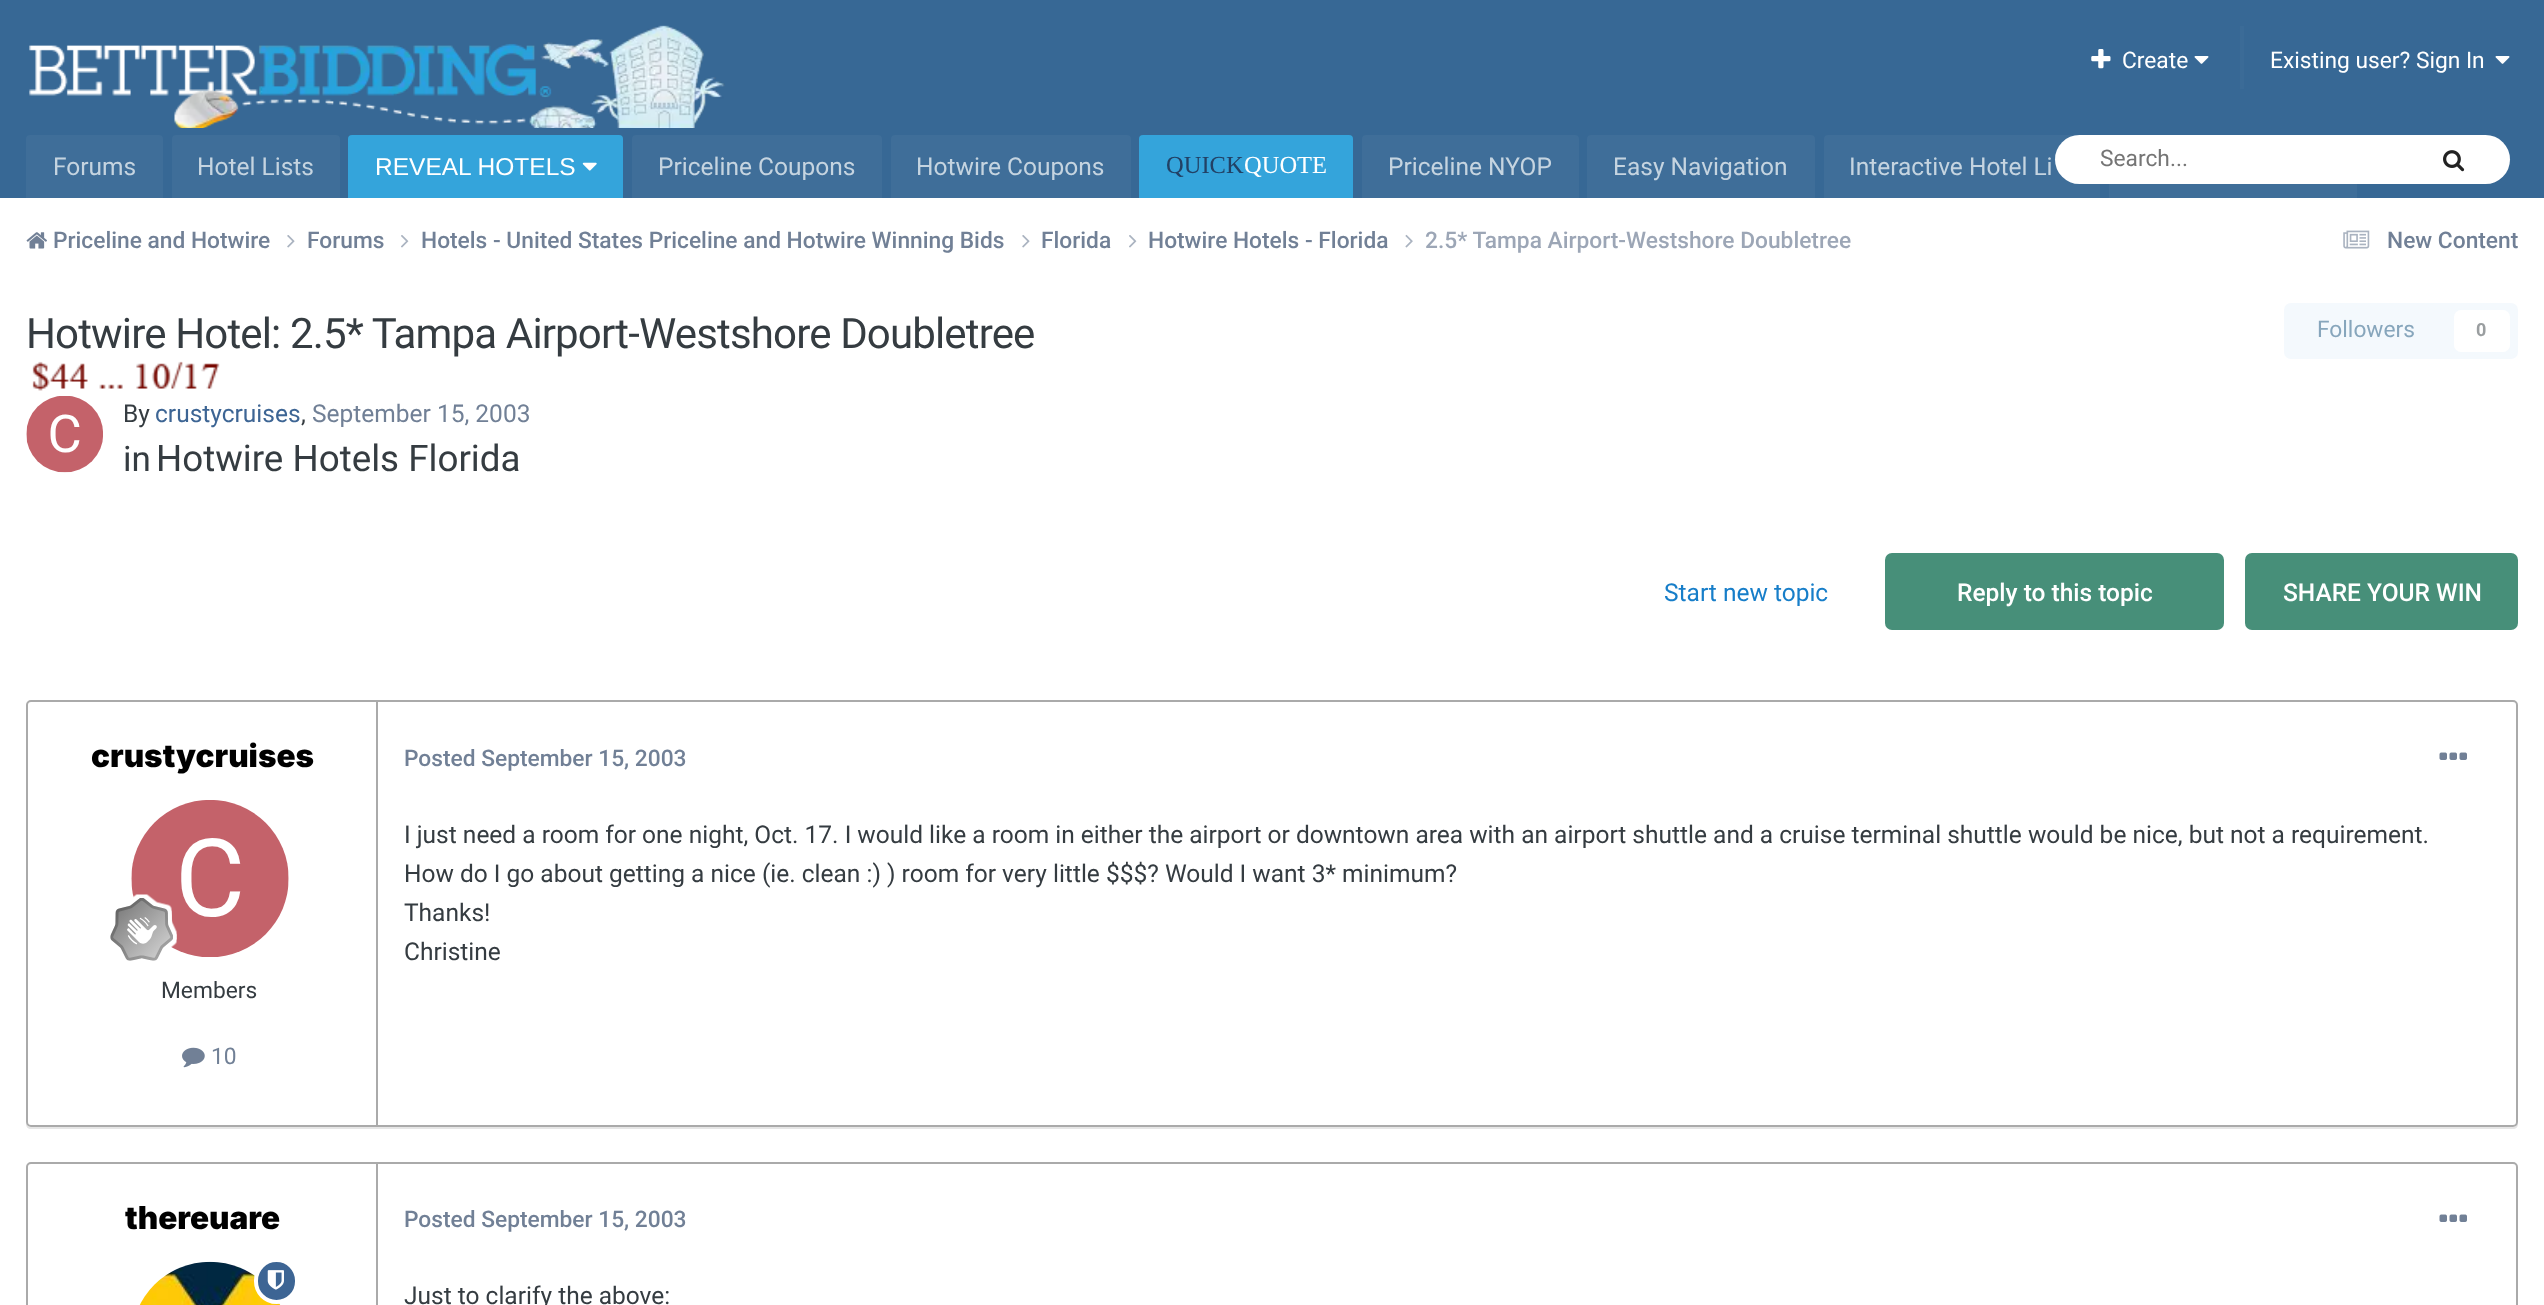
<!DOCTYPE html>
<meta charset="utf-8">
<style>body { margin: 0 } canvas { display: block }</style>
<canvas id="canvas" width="2544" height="1305"></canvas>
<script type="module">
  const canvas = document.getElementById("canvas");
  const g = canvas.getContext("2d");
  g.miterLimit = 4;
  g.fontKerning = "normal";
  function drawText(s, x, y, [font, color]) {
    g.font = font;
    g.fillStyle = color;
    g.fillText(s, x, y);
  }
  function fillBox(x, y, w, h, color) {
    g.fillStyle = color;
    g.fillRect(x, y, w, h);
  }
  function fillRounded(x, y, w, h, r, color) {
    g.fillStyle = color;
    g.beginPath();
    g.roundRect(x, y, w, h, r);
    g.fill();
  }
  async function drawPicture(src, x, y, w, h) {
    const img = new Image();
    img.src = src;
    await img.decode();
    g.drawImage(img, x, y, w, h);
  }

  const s1 = ["22.75px Roboto", "#FFFFFF"];
  const s2 = ["24.5px Roboto", "#C5D4E0"];
  const s3 = ["24.5px Liberation Sans", "#FFFFFF"];
  const s4 = ["24.5px Liberation Serif", "#224165"];
  const s5 = ["24.5px Liberation Serif", "#FFFFFF"];
  const s6 = ["22.75px Roboto", "#757575"];
  const s7 = ["500 22.75px Roboto", "#718096"];
  const s8 = ["500 22.75px Roboto", "#9CA6B6"];
  const s9 = ["42px Roboto", "#353C41"];
  const s10 = ["22.75px Roboto", "#87A6BC"];
  const s11 = ["bold 18px Roboto", "#9A9EA0"];
  const s12 = ["24.5px Roboto", "#353C41"];
  const s13 = ["24.5px Roboto", "#3D6594"];
  const s14 = ["24.5px Roboto", "#718096"];
  const s15 = ["35px Roboto", "#353C41"];
  const s16 = ["36.75px Roboto", "#353C41"];
  const s17 = ["24.5px Roboto", "#177EC9"];
  const s18 = ["500 24.5px Roboto", "#FFFFFF"];
  const s19 = ["900 31.5px Inter", "#000000"];
  const s20 = ["22.75px Roboto", "#353C41"];
  const s21 = ["22.75px Roboto", "#718096"];

  fillBox(0, 0, 2544, 1305, "#FFFFFF");
  fillBox(0, 0, 2544, 198, "#376895");
  await drawPicture("pic1.png", 29, 25, 696, 103);
  await drawPicture("pic2.png", 2091, 49, 20, 20);
  drawText("Create", 2122, 68, s1);
  await drawPicture("pic3.png", 2194, 56, 15, 8);
  fillBox(2240, 26, 4, 63, "#3B6B97");
  drawText("Existing user? Sign In", 2270, 68, s1);
  await drawPicture("pic3.png", 2495, 56, 15, 8);
  g.fillStyle = "#3F6E99";
  g.beginPath();
  g.roundRect(26, 135, 137, 63, [4, 4, 0, 0]);
  g.fill();
  drawText("Forums", 53, 175, s2);
  g.fillStyle = "#3F6E99";
  g.beginPath();
  g.roundRect(172, 135, 168, 63, [4, 4, 0, 0]);
  g.fill();
  drawText("Hotel Lists", 197, 175, s2);
  g.fillStyle = "#34A4DB";
  g.beginPath();
  g.roundRect(348, 135, 275, 63, [4, 4, 0, 0]);
  g.fill();
  drawText("REVEAL HOTELS", 375, 175, s3);
  await drawPicture("pic4.png", 582, 162, 15, 9);
  g.fillStyle = "#3F6E99";
  g.beginPath();
  g.roundRect(632, 135, 250, 63, [4, 4, 0, 0]);
  g.fill();
  drawText("Priceline Coupons", 658, 175, s2);
  g.fillStyle = "#3F6E99";
  g.beginPath();
  g.roundRect(891, 135, 240, 63, [4, 4, 0, 0]);
  g.fill();
  drawText("Hotwire Coupons", 916, 175, s2);
  g.fillStyle = "#34A4DB";
  g.beginPath();
  g.roundRect(1139, 135, 214, 63, [4, 4, 0, 0]);
  g.fill();
  drawText("QUICK", 1166, 173, s4);
  drawText("QUOTE", 1244, 173, s5);
  g.fillStyle = "#3F6E99";
  g.beginPath();
  g.roundRect(1362, 135, 217, 63, [4, 4, 0, 0]);
  g.fill();
  drawText("Priceline NYOP", 1388, 175, s2);
  g.fillStyle = "#3F6E99";
  g.beginPath();
  g.roundRect(1587, 135, 228, 63, [4, 4, 0, 0]);
  g.fill();
  drawText("Easy Navigation", 1613, 175, s2);
  g.fillStyle = "#3F6E99";
  g.beginPath();
  g.roundRect(1824, 135, 276, 63, [4, 4, 0, 0]);
  g.fill();
  drawText("Interactive Hotel Li", 1849, 175, s2);
  fillBox(2109, 184, 248, 14, "#3F6E99");
  fillRounded(2055, 135, 455, 49, 24.5, "#FFFFFF");
  drawText("Search...", 2100, 166, s6);
  await drawPicture("pic5.png", 2443, 150, 22, 22);
  await drawPicture("pic6.png", 26, 232, 21, 17);
  drawText("Priceline and Hotwire", 53, 248, s7);
  await drawPicture("pic7.png", 287, 235, 8, 13);
  drawText("Forums", 307, 248, s7);
  await drawPicture("pic8.png", 401, 235, 8, 13);
  drawText("Hotels - United States Priceline and Hotwire Winning Bids", 421, 248, s7);
  await drawPicture("pic7.png", 1022, 235, 8, 13);
  drawText("Florida", 1041, 248, s7);
  await drawPicture("pic8.png", 1129, 235, 8, 13);
  drawText("Hotwire Hotels - Florida", 1148, 248, s7);
  await drawPicture("pic9.png", 1405, 234, 8, 14);
  drawText("2.5* Tampa Airport-Westshore Doubletree", 1425, 248, s8);
  await drawPicture("pic10.png", 2343, 230, 27, 19);
  drawText("New Content", 2387, 248, s7);
  g.letterSpacing = "-0.85px";
  drawText("Hotwire Hotel: 2.5* Tampa Airport-Westshore Doubletree", 26, 348, s9);
  await drawPicture("pic11.png", 32, 361, 188, 30);
  fillRounded(2284, 303, 234, 56, 7, "#F4F9FD");
  g.letterSpacing = "0px";
  drawText("Followers", 2317, 337, s10);
  fillRounded(2454, 310, 56, 42, 7, "#FFFFFF");
  drawText("0", 2476, 336, s11);
  await drawPicture("pic12.png", 26, 396, 77, 77);
  drawText("By", 123, 422, s12);
  drawText("crustycruises", 155, 422, s13);
  drawText(",", 301, 422, s12);
  drawText("September 15, 2003", 312, 422, s14);
  drawText("in", 123, 471, s15);
  drawText("Hotwire Hotels Florida", 156, 471, s16);
  drawText("Start new topic", 1664, 601, s17);
  fillRounded(1885, 553, 339, 77, 7, "#478F79");
  drawText("Reply to this topic", 1957, 601, s18);
  fillRounded(2245, 553, 273, 77, 7, "#478F79");
  drawText("SHARE YOUR WIN", 2283, 601, s18);
  g.fillStyle = "#E6E6E6";
  g.beginPath();
  g.moveTo(26, 705);
  g.lineTo(26, 1124);
  g.bezierCurveTo(26, 1127, 28, 1129, 31, 1129);
  g.lineTo(2513, 1129);
  g.bezierCurveTo(2516, 1129, 2518, 1127, 2518, 1124);
  g.lineTo(2518, 1123);
  g.bezierCurveTo(2517, 1125, 2515, 1127, 2513, 1127);
  g.lineTo(32, 1127);
  g.bezierCurveTo(29, 1127, 26, 1125, 26, 1122);
  g.closePath();
  g.fill();
  g.fillStyle = "#FFFFFF";
  g.beginPath();
  g.roundRect(27, 701, 2490, 425, 4);
  g.fill();
  g.strokeStyle = "#AAAAAA";
  g.lineWidth = 2;
  g.stroke();
  fillBox(376, 702, 2, 423, "#AAAAAA");
  drawText("crustycruises", 91, 767, s19);
  await drawPicture("pic13.png", 131, 800, 158, 157);
  await drawPicture("pic14.png", 110, 894, 67, 67);
  drawText("Members", 161, 998, s20);
  await drawPicture("pic15.png", 182, 1047, 23, 21);
  drawText("10", 211, 1064, s21);
  drawText("Posted September 15, 2003", 404, 766, s7);
  await drawPicture("pic16.png", 2439, 752, 28, 8);
  drawText("I just need a room for one night, Oct. 17. I would like a room in either the airport or downtown area with an airport shuttle and a cruise terminal shuttle would be nice, but not a requirement.", 404, 843, s12);
  drawText("How do I go about getting a nice (ie. clean :) ) room for very little $$$? Would I want 3* minimum?", 404, 882, s12);
  drawText("Thanks!", 404, 921, s12);
  drawText("Christine", 404, 960, s12);
  g.beginPath();
  g.roundRect(27, 1163, 2490, 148, 4);
  g.stroke();
  fillBox(376, 1164, 2, 141, "#AAAAAA");
  drawText("thereuare", 125, 1229, s19);
  await drawPicture("pic18.png", 139, 1261, 142, 44);
  g.fillStyle = "#3D6594";
  g.beginPath();
  g.roundRect(256, 1260, 41, 42, 20.5);
  g.fill();
  g.strokeStyle = "#FFFFFF";
  g.lineWidth = 4;
  g.stroke();
  await drawPicture("pic17.png", 267, 1270, 17, 20);
  drawText("Posted September 15, 2003", 404, 1227, s7);
  await drawPicture("pic16.png", 2439, 1214, 28, 8);
  drawText("Just to clarify the above:", 404, 1304, s12);
</script>
